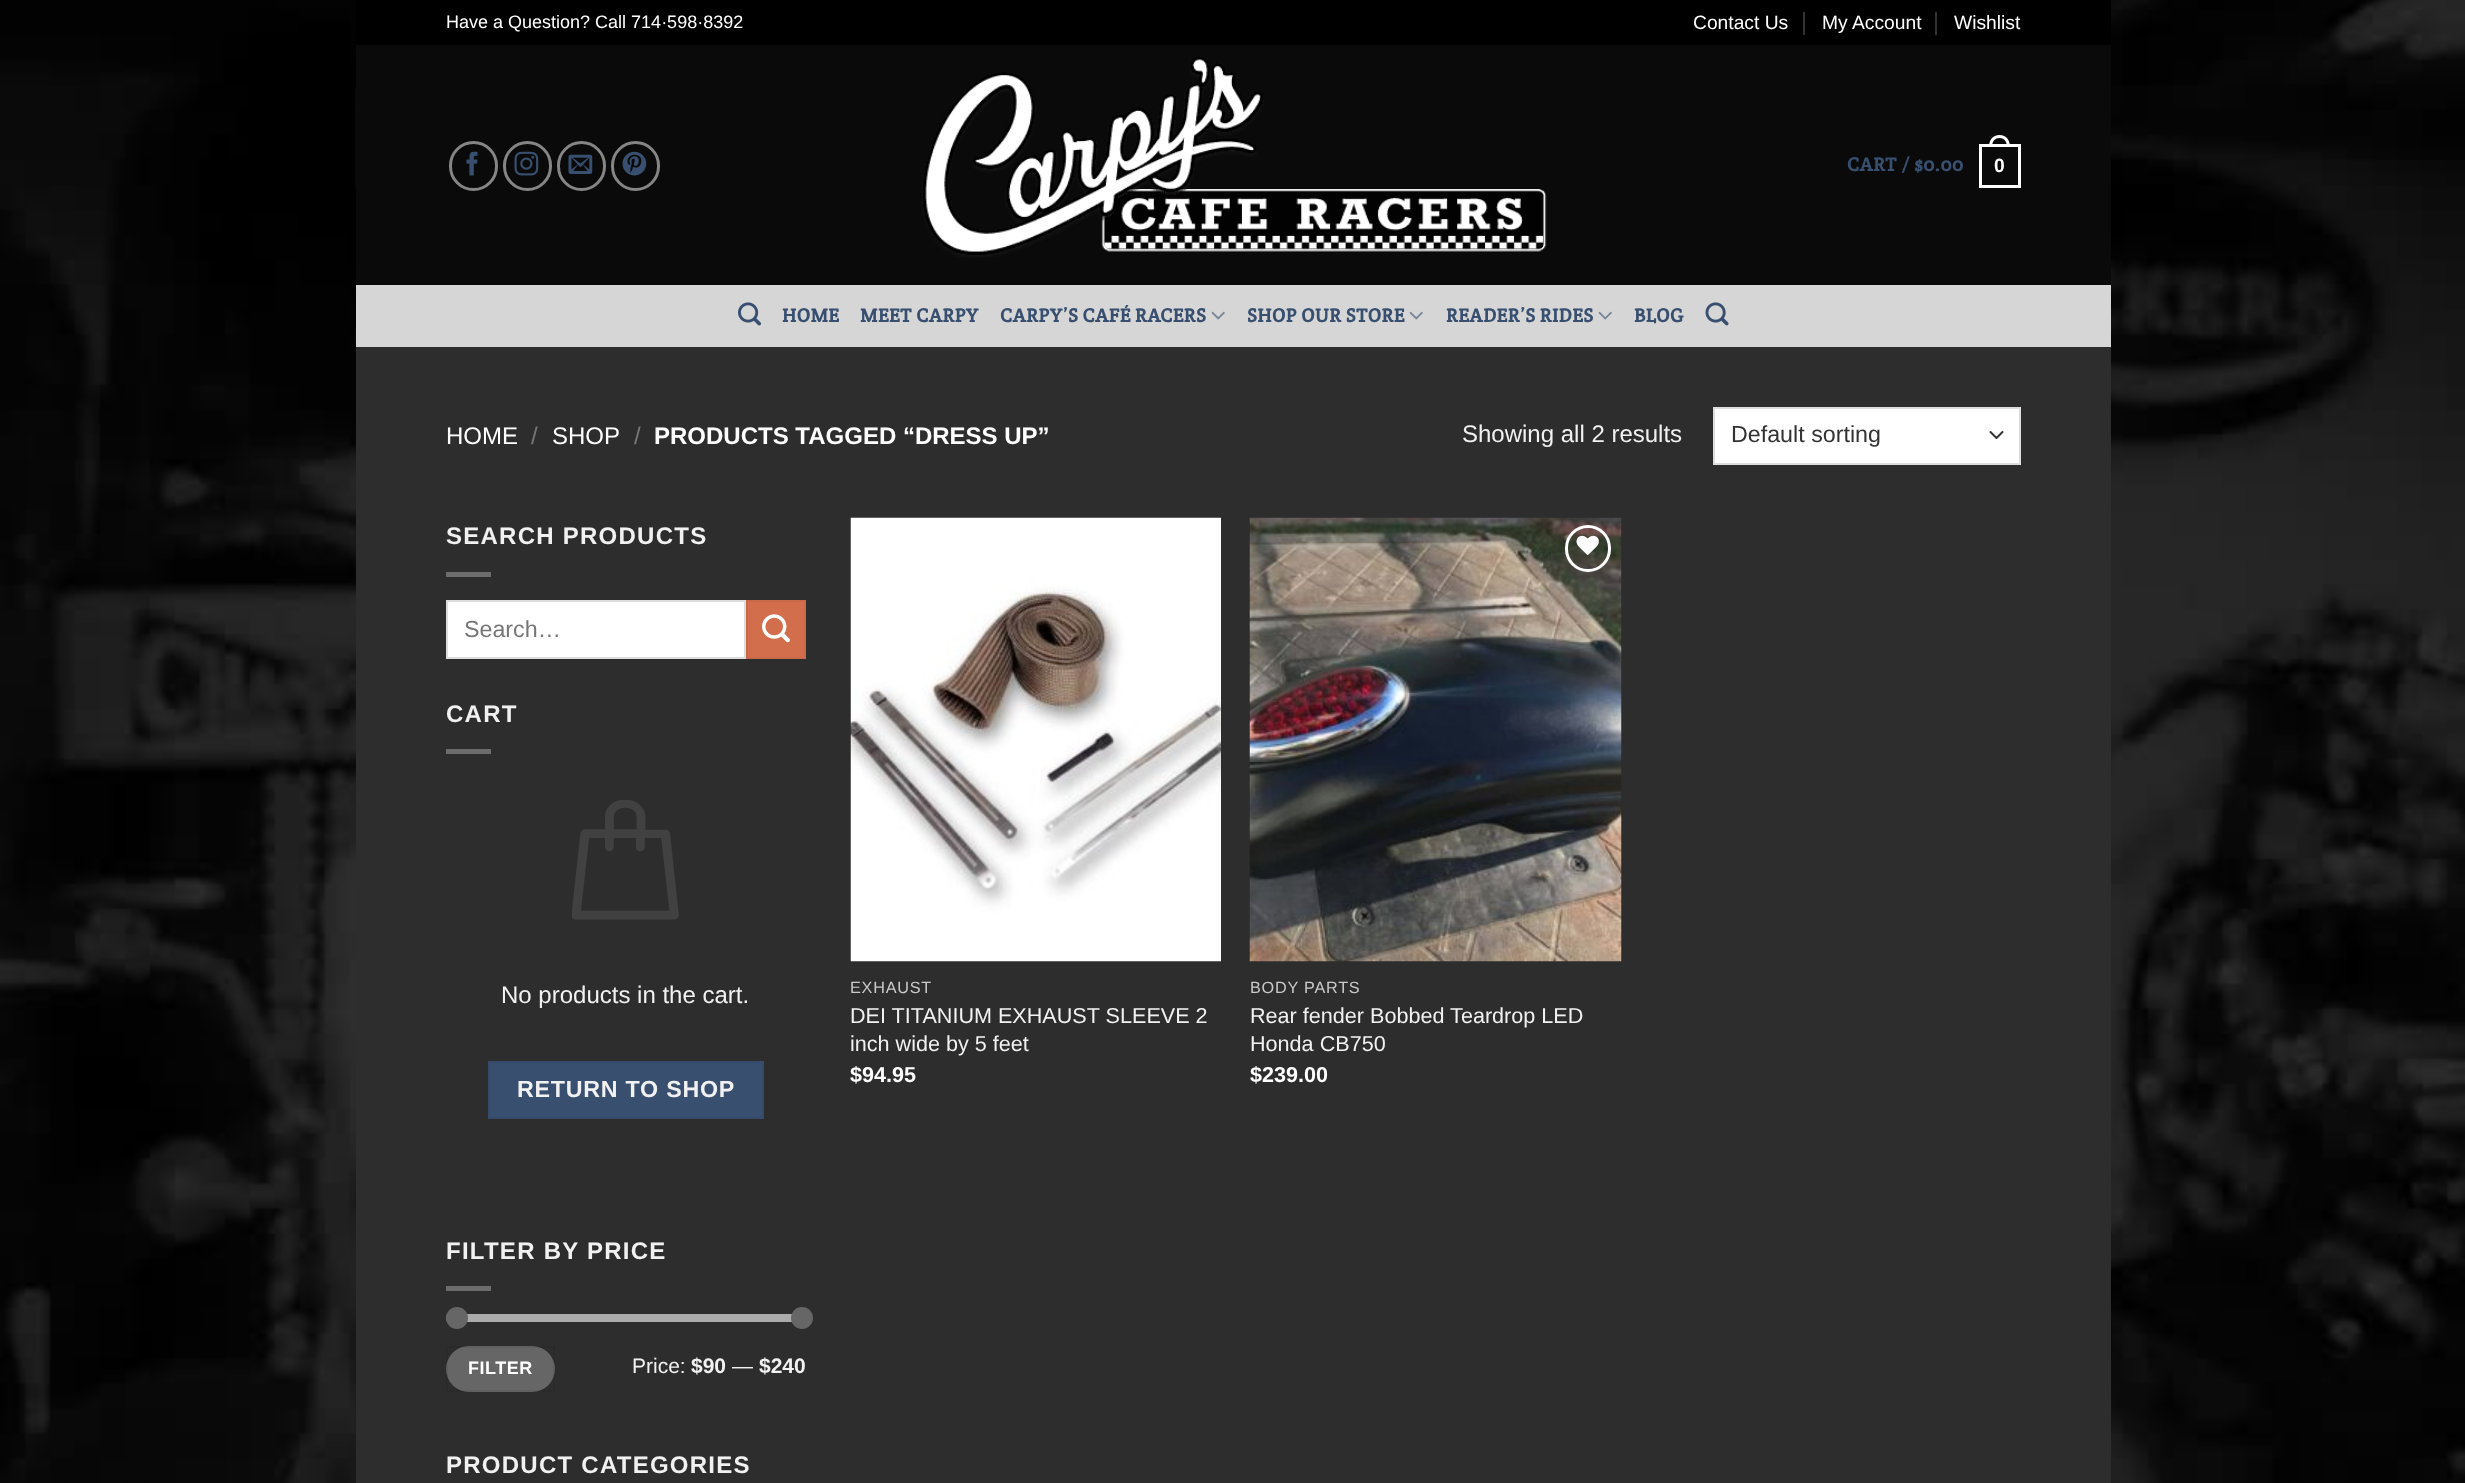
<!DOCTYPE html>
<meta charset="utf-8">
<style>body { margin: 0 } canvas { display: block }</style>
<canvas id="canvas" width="2465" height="1483"></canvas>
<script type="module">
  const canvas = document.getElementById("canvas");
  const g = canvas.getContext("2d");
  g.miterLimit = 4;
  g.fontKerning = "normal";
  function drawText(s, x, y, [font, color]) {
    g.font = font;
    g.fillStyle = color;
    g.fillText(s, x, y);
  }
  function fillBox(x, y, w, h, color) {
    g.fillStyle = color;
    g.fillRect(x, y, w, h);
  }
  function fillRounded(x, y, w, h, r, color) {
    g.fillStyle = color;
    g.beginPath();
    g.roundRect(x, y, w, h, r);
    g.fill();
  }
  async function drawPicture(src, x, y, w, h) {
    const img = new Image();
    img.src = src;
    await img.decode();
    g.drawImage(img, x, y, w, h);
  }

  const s1 = ["18px Liberation Sans", "#FFFFFF"];
  const s2 = ["19.25px Liberation Sans", "#FFFFFF"];
  const s3 = ["bold 19.25px Crete Round", "#384F6F"];
  const s4 = ["bold 19.25px Liberation Sans", "#FFFFFF"];
  const s5 = ["24px Liberation Sans", "#FFFFFF"];
  const s6 = ["24px Liberation Sans", "#777777"];
  const s7 = ["bold 24px Liberation Sans", "#FFFFFF"];
  const s8 = ["24px Liberation Sans", "#F1F1F1"];
  const s9 = ["23.25px Liberation Sans", "#333333"];
  const s10 = ["bold 24px Liberation Sans", "#F1F1F1"];
  const s11 = ["23.25px Liberation Sans", "#777777"];
  const s12 = ["bold 23.25px Liberation Sans", "#F1F1F1"];
  const s13 = ["bold 18px Liberation Sans", "#FFFFFF"];
  const s14 = ["21px Liberation Sans", "#F1F1F1"];
  const s15 = ["bold 21px Liberation Sans", "#F1F1F1"];
  const s16 = ["16.25px Liberation Sans", "#CACACA"];
  const s17 = ["21.6px Liberation Sans", "#F1F1F1"];
  const s18 = ["bold 21.6px Liberation Sans", "#FFFFFF"];

  fillBox(0, 0, 2465, 1483, "#FFFFFF");
  await drawPicture("pic1.png", 0, 0, 2465, 1483);
  fillBox(356, 347, 1755, 1136, "#2D2D2D");
  await drawPicture("pic2.png", 355, 0, 1, 347);
  fillBox(356, 45, 1755, 240, "#0A0A0A");
  fillBox(356, 0, 1755, 45, "#000000");
  drawText("Have a Question? Call 714·598·8392", 446, 28, s1);
  drawText("Contact Us", 1693, 29, s2);
  fillBox(1803, 12, 2, 23, "#333333");
  drawText("My Account", 1822, 29, s2);
  fillBox(1935, 12, 2, 23, "#333333");
  drawText("Wishlist", 1954, 29, s2);
  g.beginPath();
  g.roundRect(450.5, 142.5, 46, 47, 23);
  g.strokeStyle = "#858585";
  g.lineWidth = 3;
  g.stroke();
  await drawPicture("pic3.png", 466, 151, 12, 25);
  g.beginPath();
  g.roundRect(504.5, 142.5, 46, 47, 23);
  g.stroke();
  await drawPicture("pic4.png", 514, 151, 25, 25);
  g.beginPath();
  g.roundRect(558.5, 142.5, 46, 47, 23);
  g.stroke();
  await drawPicture("pic5.png", 568, 154, 25, 20);
  g.beginPath();
  g.roundRect(612.5, 142.5, 46, 47, 23);
  g.stroke();
  await drawPicture("pic6.png", 622, 151, 25, 25);
  await drawPicture("pic7.png", 922, 56, 625, 202);
  g.letterSpacing = "0.4px";
  drawText("CART / $0.00", 1847, 171, s3);
  g.strokeStyle = "#FFFFFF";
  g.strokeRect(1980.5, 145.5, 39, 41);
  g.fillStyle = "#FFFFFF";
  g.beginPath();
  g.moveTo(1999.5, 135);
  g.bezierCurveTo(2006.5, 135, 2010, 140.5, 2010, 147);
  g.lineTo(1989, 147);
  g.bezierCurveTo(1989, 140.5, 1992.5, 135, 1999.5, 135);
  g.closePath();
  g.moveTo(1999.5, 138);
  g.bezierCurveTo(2005, 138, 2007, 142.5, 2007, 147);
  g.lineTo(1992, 147);
  g.bezierCurveTo(1992, 142.5, 1994, 138, 1999.5, 138);
  g.closePath();
  g.fill("evenodd");
  drawText("0", 1994, 172, s4);
  fillBox(356, 285, 1755, 62, "#D6D6D6");
  await drawPicture("pic8.png", 738, 302, 23, 24);
  drawText("HOME", 782, 322, s3);
  drawText("MEET CARPY", 860, 322, s3);
  drawText("CARPY’S CAFÉ RACERS", 1000, 322, s3);
  await drawPicture("pic9.png", 1211, 311, 14, 9);
  drawText("SHOP OUR STORE", 1247, 322, s3);
  await drawPicture("pic9.png", 1409, 311, 14, 9);
  drawText("READER’S RIDES", 1446, 322, s3);
  await drawPicture("pic9.png", 1598, 311, 14, 9);
  drawText("BLOG", 1634, 322, s3);
  await drawPicture("pic10.png", 1705, 302, 24, 24);
  g.letterSpacing = "0px";
  drawText("HOME", 446, 444, s5);
  drawText("/", 531, 444, s6);
  drawText("SHOP", 552, 444, s5);
  drawText("/", 634, 444, s6);
  drawText("PRODUCTS TAGGED “DRESS UP”", 654, 444, s7);
  drawText("Showing all 2 results", 1462, 442, s8);
  fillBox(1715, 409, 304, 54, "#FFFFFF");
  g.beginPath();
  g.moveTo(1990.5, 432);
  g.lineTo(1996.5, 438);
  g.lineTo(2002.5, 432);
  g.strokeStyle = "#333333";
  g.lineWidth = 2;
  g.lineCap = "round";
  g.lineJoin = "round";
  g.stroke();
  g.strokeStyle = "#DDDDDD";
  g.lineJoin = "miter";
  g.strokeRect(1714, 408, 306, 56);
  drawText("Default sorting", 1731, 442, s9);
  g.letterSpacing = "1.25px";
  drawText("SEARCH PRODUCTS", 446, 544, s10);
  fillBox(446, 572, 45, 5, "#6C6C6C");
  g.fillStyle = "#FFFFFF";
  g.beginPath();
  g.rect(447, 601, 298, 57);
  g.fill();
  g.stroke();
  g.letterSpacing = "0px";
  drawText("Search…", 464, 637, s11);
  g.fillStyle = "#D26E4B";
  g.beginPath();
  g.rect(747, 601, 58, 57);
  g.fill();
  g.strokeStyle = "#C86947";
  g.stroke();
  await drawPicture("pic11.png", 762, 614, 28, 29);
  g.letterSpacing = "1.25px";
  drawText("CART", 446, 722, s10);
  fillBox(446, 749, 45, 5, "#6C6C6C");
  await drawPicture("pic12.png", 572, 800, 107, 120);
  g.letterSpacing = "0px";
  drawText("No products in the cart.", 501, 1003, s8);
  g.fillStyle = "#384F6F";
  g.beginPath();
  g.rect(489, 1062, 274, 56);
  g.fill();
  g.strokeStyle = "#354B69";
  g.stroke();
  g.letterSpacing = "0.75px";
  drawText("RETURN TO SHOP", 517, 1097, s12);
  g.letterSpacing = "1.25px";
  drawText("FILTER BY PRICE", 446, 1259, s10);
  fillBox(446, 1286, 45, 5, "#6C6C6C");
  fillRounded(446, 1314, 360, 8, 4, "#F1F1F1");
  fillRounded(446, 1314, 360, 8, 4, "rgba(102, 102, 102, 0.5)");
  g.fillStyle = "#666666";
  g.beginPath();
  g.arc(457, 1318, 11, 0, Math.PI * 2);
  g.fill();
  g.beginPath();
  g.arc(802, 1318, 11, 0, Math.PI * 2);
  g.fill();
  fillRounded(446, 1346, 109, 46, 23, "#666666");
  g.strokeStyle = "rgba(0, 0, 0, 0.05)";
  g.strokeRect(447, 1347, 107, 44);
  g.letterSpacing = "0.5px";
  drawText("FILTER", 468, 1374, s13);
  g.letterSpacing = "0px";
  drawText("Price:", 632, 1373, s14);
  drawText("$90", 691, 1373, s15);
  drawText("—", 732, 1373, s14);
  drawText("$240", 759, 1373, s15);
  g.letterSpacing = "1.25px";
  drawText("PRODUCT CATEGORIES", 446, 1473, s10);
  await drawPicture("pic13.png", 850, 517, 371, 445);
  g.letterSpacing = "0.75px";
  drawText("EXHAUST", 850, 993, s16);
  g.letterSpacing = "0px";
  drawText("DEI TITANIUM EXHAUST SLEEVE 2", 850, 1023, s17);
  drawText("inch wide by 5 feet", 850, 1051, s17);
  drawText("$94.95", 850, 1082, s18);
  await drawPicture("pic14.png", 1249, 517, 373, 445);
  g.beginPath();
  g.roundRect(1566.5, 526.5, 43, 44, 21.5);
  g.strokeStyle = "#FFFFFF";
  g.lineWidth = 3;
  g.stroke();
  await drawPicture("pic15.png", 1576, 535, 23, 20);
  g.letterSpacing = "0.75px";
  drawText("BODY PARTS", 1250, 993, s16);
  g.letterSpacing = "0px";
  drawText("Rear fender Bobbed Teardrop LED", 1250, 1023, s17);
  drawText("Honda CB750", 1250, 1051, s17);
  drawText("$239.00", 1250, 1082, s18);
</script>
